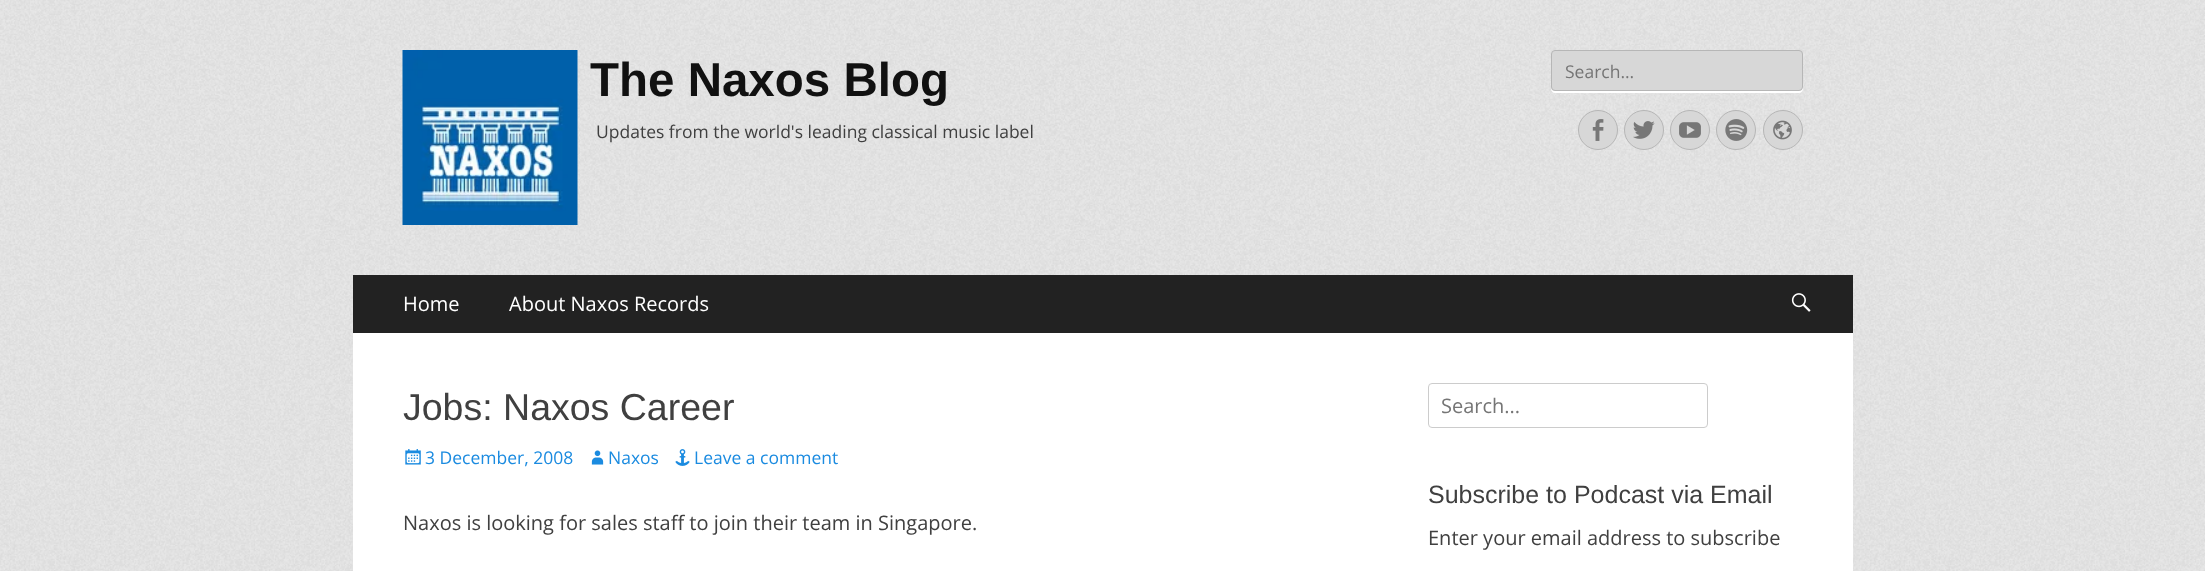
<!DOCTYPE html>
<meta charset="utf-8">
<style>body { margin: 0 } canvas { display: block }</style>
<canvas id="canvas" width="2205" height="571"></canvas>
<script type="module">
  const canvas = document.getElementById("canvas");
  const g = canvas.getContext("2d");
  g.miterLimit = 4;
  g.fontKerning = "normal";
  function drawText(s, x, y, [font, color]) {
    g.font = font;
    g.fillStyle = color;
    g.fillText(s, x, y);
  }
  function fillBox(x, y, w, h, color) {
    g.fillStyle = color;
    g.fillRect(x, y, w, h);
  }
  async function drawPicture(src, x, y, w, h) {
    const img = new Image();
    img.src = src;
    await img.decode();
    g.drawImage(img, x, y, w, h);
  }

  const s1 = ["bold 47.5px Liberation Sans", "#111111"];
  const s2 = ["17.5px Open Sans", "#404040"];
  const s3 = ["17.5px Open Sans", "#757575"];
  const s4 = ["20px Open Sans", "#FFFFFF"];
  const s5 = ["37.5px Liberation Sans", "#404040"];
  const s6 = ["17.5px Open Sans", "#1B8BE0"];
  const s7 = ["20px Open Sans", "#404040"];
  const s8 = ["20px Open Sans", "#757575"];
  const s9 = ["25px Liberation Sans", "#404040"];

  fillBox(0, 0, 2205, 571, "#FFFFFF");
  await drawPicture("pic1.png", 0, 0, 2205, 571);
  await drawPicture("pic2.png", 402, 50, 176, 175);
  drawText("The Naxos Blog", 590, 96, s1);
  drawText("Updates from the world's leading classical music label", 596, 138, s2);
  g.fillStyle = "#FFFFFF";
  g.beginPath();
  g.moveTo(1551, 54);
  g.lineTo(1551, 89);
  g.bezierCurveTo(1551, 91, 1553, 93, 1555, 93);
  g.lineTo(1799, 93);
  g.bezierCurveTo(1801, 93, 1803, 91, 1803, 89);
  g.lineTo(1803, 55);
  g.lineTo(1802, 53);
  g.lineTo(1802, 82);
  g.bezierCurveTo(1802, 85, 1804, 91, 1799, 91);
  g.lineTo(1555, 91);
  g.bezierCurveTo(1550, 91, 1551, 85, 1551, 82);
  g.closePath();
  g.fill();
  g.fillStyle = "#D7D7D7";
  g.beginPath();
  g.roundRect(1551.5, 50.5, 251, 40, 3.5);
  g.fill();
  g.strokeStyle = "#B6B6B6";
  g.stroke();
  drawText("Search...", 1565, 78, s3);
  g.fillStyle = "#D7D7D7";
  g.beginPath();
  g.arc(1598, 130, 19.5, 0, Math.PI * 2);
  g.fill();
  g.stroke();
  await drawPicture("pic3.png", 1592, 119, 12, 22);
  g.beginPath();
  g.arc(1644, 130, 19.5, 0, Math.PI * 2);
  g.fill();
  g.stroke();
  await drawPicture("pic4.png", 1633, 121, 22, 18);
  g.beginPath();
  g.arc(1690, 130, 19.5, 0, Math.PI * 2);
  g.fill();
  g.stroke();
  await drawPicture("pic5.png", 1679, 122, 22, 16);
  g.beginPath();
  g.arc(1736, 130, 19.5, 0, Math.PI * 2);
  g.fill();
  g.stroke();
  await drawPicture("pic6.png", 1725, 119, 23, 22);
  g.beginPath();
  g.arc(1783, 130, 19.5, 0, Math.PI * 2);
  g.fill();
  g.stroke();
  await drawPicture("pic7.png", 1773, 120, 19, 20);
  fillBox(353, 275, 1500, 58, "#222222");
  drawText("Home", 403, 311, s4);
  drawText("About Naxos Records", 509, 311, s4);
  await drawPicture("pic8.png", 1791, 293, 20, 19);
  fillBox(353, 333, 1500, 238, "#FFFFFF");
  drawText("Jobs: Naxos Career", 403, 420, s5);
  await drawPicture("pic9.png", 405, 449, 16, 16);
  drawText("3 December, 2008", 425, 464, s6);
  await drawPicture("pic10.png", 591, 450, 13, 15);
  drawText("Naxos", 608, 464, s6);
  await drawPicture("pic11.png", 675, 449, 15, 17);
  drawText("Leave a comment", 694, 464, s6);
  drawText("Naxos is looking for sales staff to join their team in Singapore.", 403, 530, s7);
  g.beginPath();
  g.roundRect(1428.5, 383.5, 279, 44, 3.5);
  g.strokeStyle = "#CCCCCC";
  g.stroke();
  drawText("Search...", 1441, 413, s8);
  drawText("Subscribe to Podcast via Email", 1428, 503, s9);
  drawText("Enter your email address to subscribe", 1428, 545, s7);
</script>
